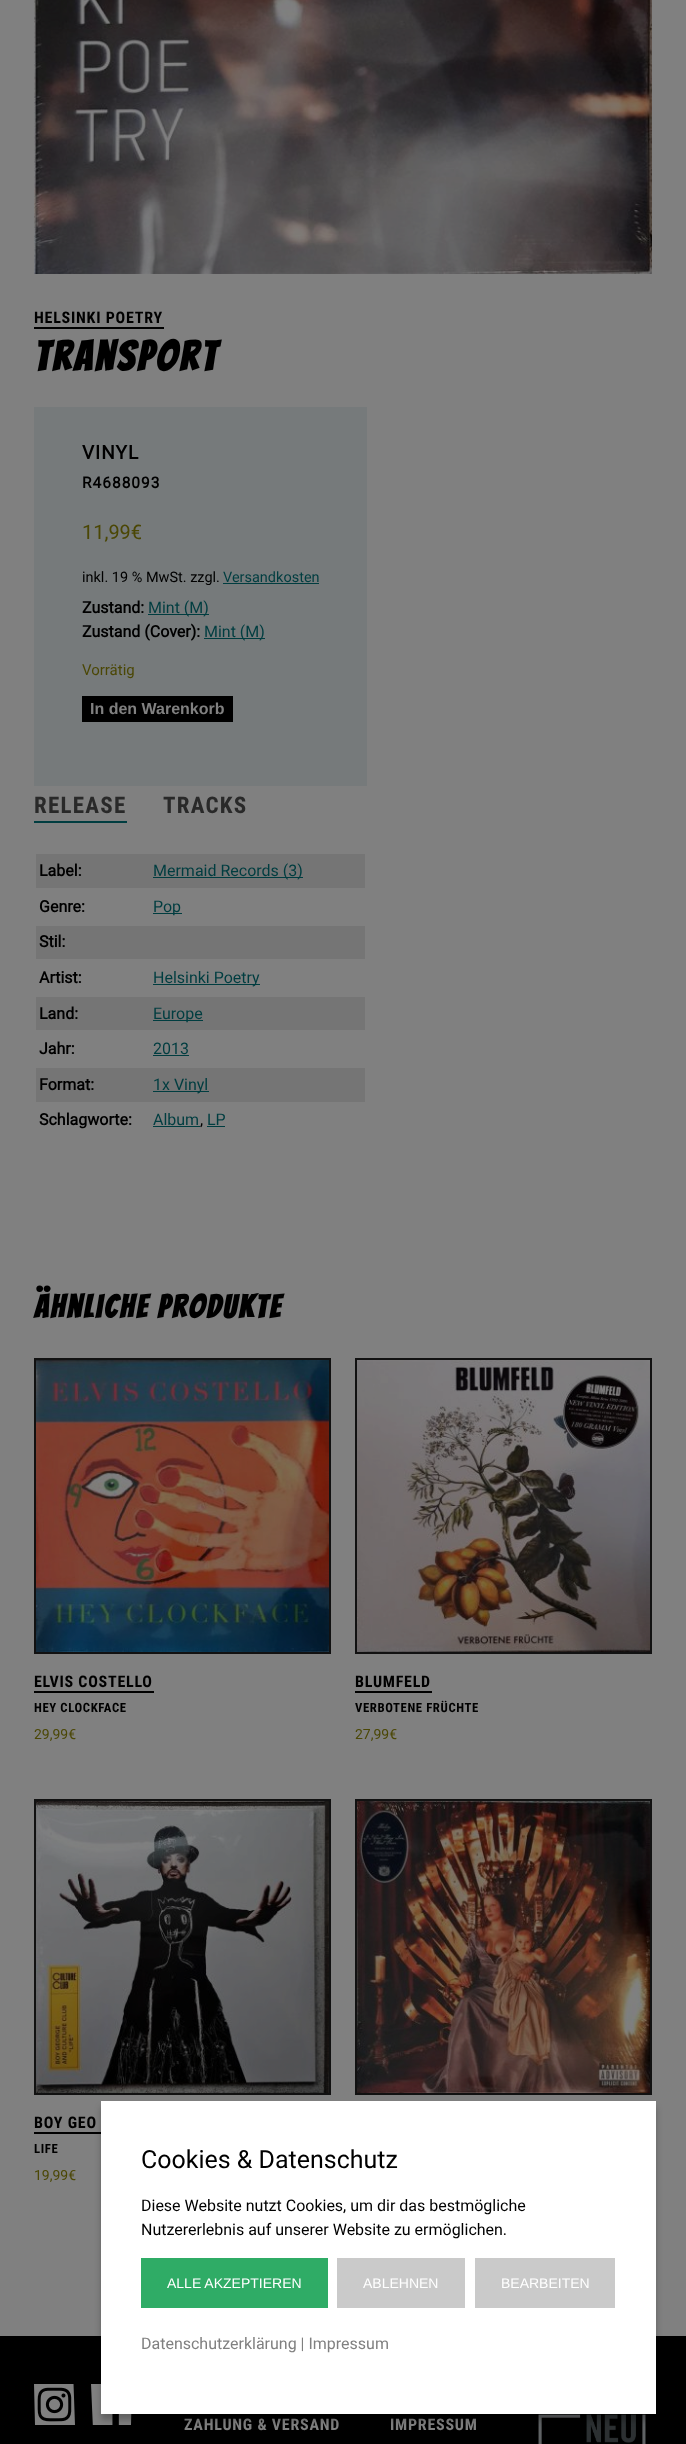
<!DOCTYPE html>
<meta charset="utf-8">
<style>body { margin: 0 } canvas { display: block }</style>
<canvas id="canvas" width="686" height="2444"></canvas>
<script type="module">
  const canvas = document.getElementById("canvas");
  const g = canvas.getContext("2d");
  g.miterLimit = 4;
  g.fontKerning = "normal";
  function drawText(s, x, y, [font, color]) {
    g.font = font;
    g.fillStyle = color;
    g.fillText(s, x, y);
  }
  function fillBox(x, y, w, h, color) {
    g.fillStyle = color;
    g.fillRect(x, y, w, h);
  }
  async function drawPicture(src, x, y, w, h) {
    const img = new Image();
    img.src = src;
    await img.decode();
    g.drawImage(img, x, y, w, h);
  }

  const s1 = ["bold 16px Roboto Condensed", "#000000"];
  const s2 = ["bold 41.5px Bangers", "#000000"];
  const s3 = ["bold 19px Roboto", "#000000"];
  const s4 = ["bold 15.5px Roboto", "#000000"];
  const s5 = ["20px Roboto", "#4B4705"];
  const s6 = ["14.5px Roboto", "#000000"];
  const s7 = ["14.5px Roboto", "#003D40"];
  const s8 = ["bold 16px Roboto", "#000000"];
  const s9 = ["16px Roboto", "#003D40"];
  const s10 = ["15px Roboto", "#4B4705"];
  const s11 = ["bold 16px Liberation Sans", "#808080"];
  const s12 = ["bold 23px Roboto Condensed", "#292929"];
  const s13 = ["16px Roboto", "#000000"];
  const s14 = ["bold 32px Bangers", "#000000"];
  const s15 = ["bold 12.75px Roboto Condensed", "#000000"];
  const s16 = ["14px Roboto", "#4B4705"];
  const s17 = ["bold 16px Roboto Condensed", "#808080"];
  const s18 = ["25px Roboto", "#000000"];
  const s19 = ["14px Liberation Sans", "#FFFFFF"];
  const s20 = ["16px Roboto", "#808080"];

  fillBox(0, 0, 686, 2444, "#808080");
  await drawPicture("pic1.png", 34, 0, 618, 274);
  g.letterSpacing = "0.75px";
  drawText("HELSINKI POETRY", 34, 323, s1);
  fillBox(34, 327, 130, 2, "#000000");
  g.letterSpacing = "3px";
  drawText("Transport", 34, 371, s2);
  fillBox(34, 407, 333, 379, "#767A7B");
  g.letterSpacing = "1px";
  drawText("VINYL", 82, 459, s3);
  drawText("R4688093", 82, 488, s4);
  g.letterSpacing = "0px";
  drawText("11,99€", 82, 539, s5);
  drawText("inkl. 19 % MwSt. zzgl.", 82, 582, s6);
  drawText("Versandkosten", 223, 582, s7);
  fillBox(223, 583, 96, 1, "#003D40");
  drawText("Zustand:", 82, 613, s8);
  fillBox(148, 614, 61, 1, "#003D40");
  drawText("Mint (M)", 148, 613, s9);
  drawText("Zustand (Cover):", 82, 637, s8);
  fillBox(204, 638, 61, 1, "#003D40");
  drawText("Mint (M)", 204, 637, s9);
  drawText("Vorrätig", 82, 675, s10);
  fillBox(82, 696, 151, 26, "#000000");
  drawText("In den Warenkorb", 90, 714, s11);
  g.letterSpacing = "1.25px";
  drawText("RELEASE", 34, 813, s12);
  fillBox(34, 821, 93, 2, "#003D40");
  drawText("TRACKS", 163, 813, s12);
  fillBox(36, 854, 329, 34, "#757575");
  g.letterSpacing = "0px";
  drawText("Label:", 39, 876, s8);
  fillBox(153, 877, 150, 1, "#003D40");
  drawText("Mermaid Records (3)", 153, 876, s9);
  drawText("Genre:", 39, 912, s8);
  fillBox(153, 913, 29, 1, "#003D40");
  drawText("Pop", 153, 912, s9);
  fillBox(36, 926, 329, 33, "#757575");
  drawText("Stil:", 39, 947, s8);
  drawText("Artist:", 39, 983, s8);
  fillBox(153, 984, 107, 1, "#003D40");
  drawText("Helsinki Poetry", 153, 983, s9);
  fillBox(36, 997, 329, 33, "#757575");
  drawText("Land:", 39, 1019, s8);
  fillBox(153, 1020, 50, 1, "#003D40");
  drawText("Europe", 153, 1019, s9);
  drawText("Jahr:", 39, 1054, s8);
  drawText("2013", 153, 1054, s9);
  fillBox(153, 1055, 36, 1, "#003D40");
  fillBox(36, 1068, 329, 34, "#757575");
  drawText("Format:", 39, 1090, s8);
  fillBox(153, 1091, 56, 1, "#003D40");
  drawText("1x Vinyl", 153, 1090, s9);
  drawText("Schlagworte:", 39, 1125, s8);
  drawText("Album", 153, 1125, s9);
  fillBox(153, 1126, 47, 1, "#003D40");
  drawText("LP", 207, 1125, s9);
  fillBox(207, 1126, 18, 1, "#003D40");
  drawText(",", 200, 1125, s13);
  g.letterSpacing = "2.25px";
  drawText("Ähnliche Produkte", 34, 1318, s14);
  g.strokeStyle = "#111111";
  g.lineWidth = 2;
  g.strokeRect(35, 1359, 295, 294);
  await drawPicture("pic2.png", 36, 1360, 293, 292);
  g.letterSpacing = "0.75px";
  drawText("ELVIS COSTELLO", 34, 1687, s1);
  fillBox(34, 1691, 120, 2, "#000000");
  g.letterSpacing = "0.6px";
  drawText("HEY CLOCKFACE", 34, 1712, s15);
  g.letterSpacing = "0px";
  drawText("29,99€", 34, 1739, s16);
  g.strokeRect(356, 1359, 295, 294);
  await drawPicture("pic3.png", 357, 1360, 293, 292);
  g.letterSpacing = "0.75px";
  drawText("BLUMFELD", 355, 1687, s1);
  fillBox(355, 1691, 77, 2, "#000000");
  g.letterSpacing = "0.6px";
  drawText("VERBOTENE FRÜCHTE", 355, 1712, s15);
  g.letterSpacing = "0px";
  drawText("27,99€", 355, 1739, s16);
  g.strokeRect(356, 1800, 295, 294);
  await drawPicture("pic4.png", 357, 1801, 293, 292);
  g.strokeRect(35, 1800, 295, 294);
  await drawPicture("pic5.png", 36, 1801, 293, 292);
  g.letterSpacing = "0.75px";
  drawText("BOY GEO", 34, 2128, s1);
  fillBox(34, 2132, 67, 2, "#000000");
  g.letterSpacing = "0.6px";
  drawText("LIFE", 34, 2153, s15);
  g.letterSpacing = "0px";
  drawText("19,99€", 34, 2180, s16);
  fillBox(0, 2336, 686, 108, "#000000");
  await drawPicture("pic6.png", 34, 2384, 41, 41);
  await drawPicture("pic7.png", 91, 2384, 41, 41);
  g.letterSpacing = "0.75px";
  drawText("ZAHLUNG & VERSAND", 184, 2430, s17);
  drawText("IMPRESSUM", 390, 2430, s17);
  await drawPicture("pic8.png", 538, 2414, 108, 30);
  g.fillStyle = "rgba(0, 0, 0, 0.25)";
  g.filter = "blur(3px)";
  g.beginPath();
  g.rect(101, 2107, 555, 313);
  g.fill();
  g.filter = "none";
  fillBox(101, 2101, 555, 313, "#FFFFFF");
  g.letterSpacing = "0px";
  drawText("Cookies & Datenschutz", 141, 2168, s18);
  drawText("Diese Website nutzt Cookies, um dir das bestmögliche", 141, 2211, s13);
  drawText("Nutzererlebnis auf unserer Website zu ermöglichen.", 141, 2235, s13);
  fillBox(141, 2258, 187, 50, "#2FAC66");
  drawText("ALLE AKZEPTIEREN", 167, 2288, s19);
  fillBox(337, 2258, 128, 50, "#CACACA");
  drawText("ABLEHNEN", 363, 2288, s19);
  fillBox(475, 2258, 140, 50, "#CACACA");
  drawText("BEARBEITEN", 501, 2288, s19);
  drawText("Datenschutzerklärung | Impressum", 141, 2349, s20);
</script>
